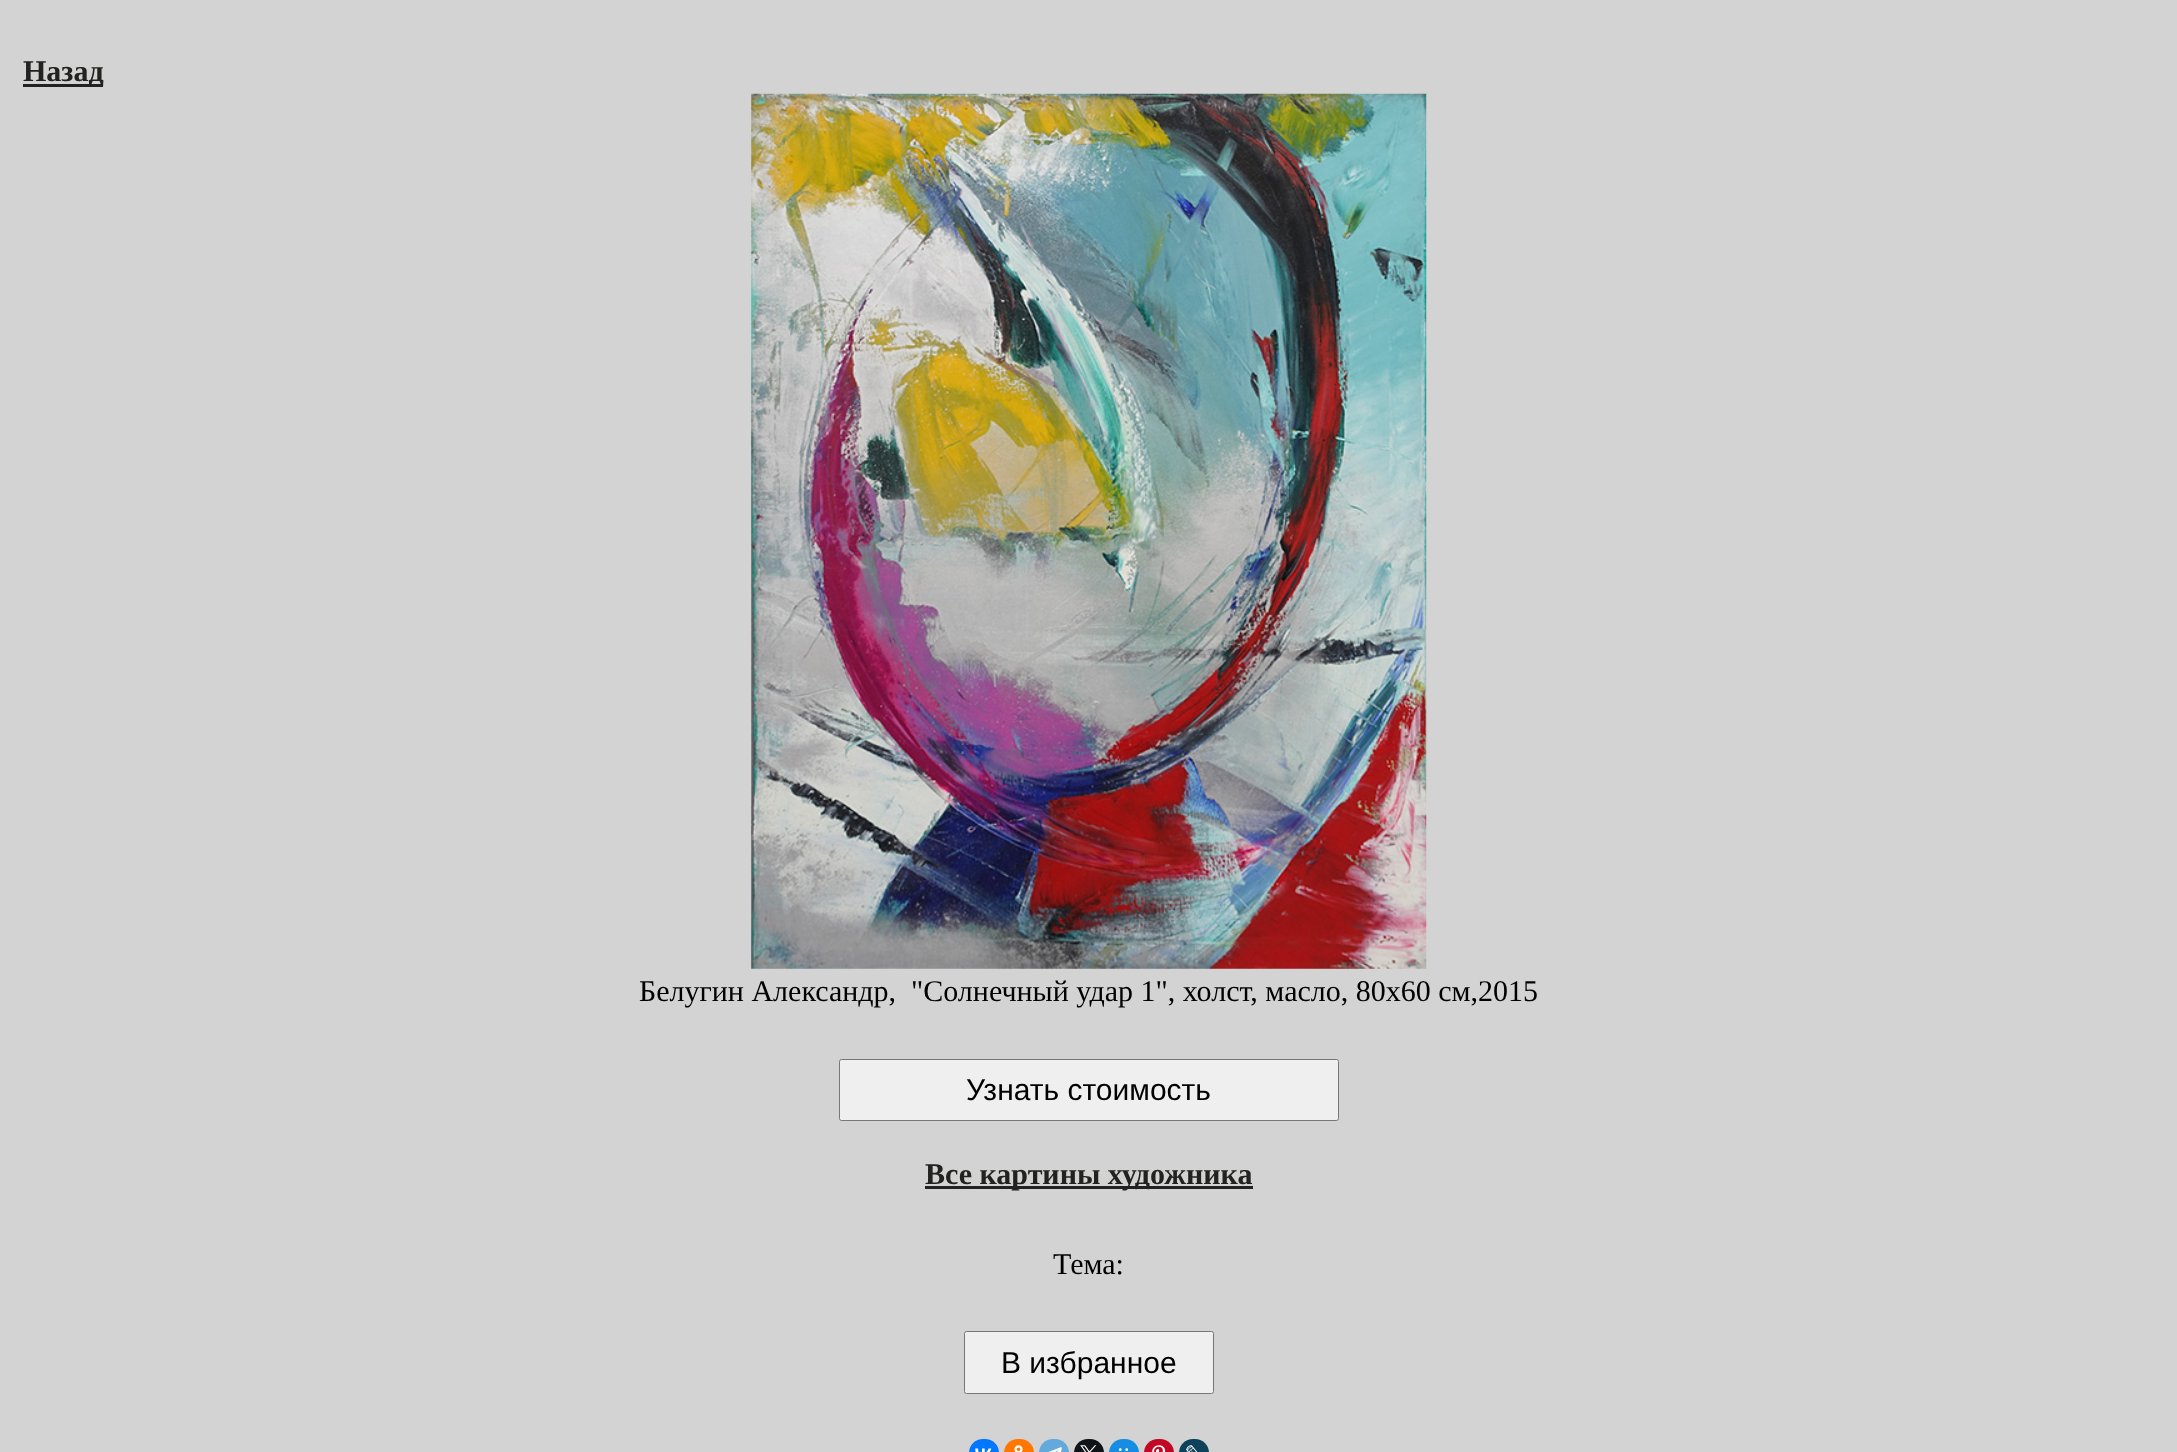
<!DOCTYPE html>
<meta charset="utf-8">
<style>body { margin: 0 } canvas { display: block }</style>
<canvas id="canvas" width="2177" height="1452"></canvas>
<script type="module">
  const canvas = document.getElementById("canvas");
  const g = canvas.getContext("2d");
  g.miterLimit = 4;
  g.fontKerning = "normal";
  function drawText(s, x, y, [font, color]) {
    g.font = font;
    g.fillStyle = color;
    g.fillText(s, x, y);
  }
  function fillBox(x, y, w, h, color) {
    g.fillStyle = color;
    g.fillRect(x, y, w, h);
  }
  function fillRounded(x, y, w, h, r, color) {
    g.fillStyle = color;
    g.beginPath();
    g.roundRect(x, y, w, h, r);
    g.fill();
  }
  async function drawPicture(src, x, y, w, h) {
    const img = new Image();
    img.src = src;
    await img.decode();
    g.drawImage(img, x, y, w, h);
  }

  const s1 = ["bold 30px Liberation Serif", "#222220"];
  const s2 = ["30px Liberation Serif", "#000000"];
  const s3 = ["30px Liberation Sans", "#000000"];

  fillBox(0, 0, 2177, 1452, "#D3D3D3");
  fillBox(23, 84, 80, 3, "#222220");
  drawText("Назад", 23, 81, s1);
  await drawPicture("pic1.png", 751, 93, 676, 876);
  drawText("Белугин Александр,", 639, 1001, s2);
  drawText("\"Солнечный удар 1\", холст, масло, 80x60 см,2015", 911, 1001, s2);
  g.fillStyle = "#EFEFEF";
  g.beginPath();
  g.roundRect(839.5, 1059.5, 499, 61, 2);
  g.fill();
  g.strokeStyle = "#767676";
  g.stroke();
  drawText("Узнать стоимость", 966, 1100, s3);
  fillBox(925, 1186, 328, 3, "#222220");
  drawText("Все картины художника", 925, 1184, s1);
  drawText("Тема:", 1053, 1274, s2);
  g.fillStyle = "#EFEFEF";
  g.beginPath();
  g.roundRect(964.5, 1331.5, 249, 62, 2);
  g.fill();
  g.stroke();
  drawText("В избранное", 1001, 1373, s3);
  fillRounded(969, 1439, 30, 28, 15, "#0077FF");
  await drawPicture("pic2.png", 975, 1448, 17, 4);
  fillRounded(1004, 1439, 30, 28, 15, "#FF7700");
  await drawPicture("pic3.png", 1014, 1445, 9, 7);
  fillRounded(1039, 1439, 30, 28, 15, "#64A9DC");
  await drawPicture("pic4.png", 1048, 1447, 14, 5);
  fillRounded(1074, 1439, 30, 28, 15, "#0F1419");
  await drawPicture("pic5.png", 1080, 1445, 17, 7);
  fillRounded(1109, 1439, 30, 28, 15, "#168DE2");
  await drawPicture("pic6.png", 1118, 1448, 11, 3);
  fillRounded(1144, 1439, 30, 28, 15, "#C20724");
  await drawPicture("pic7.png", 1152, 1445, 14, 7);
  fillRounded(1179, 1439, 30, 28, 15, "#0D425A");
  await drawPicture("pic8.png", 1186, 1445, 12, 7);
</script>
